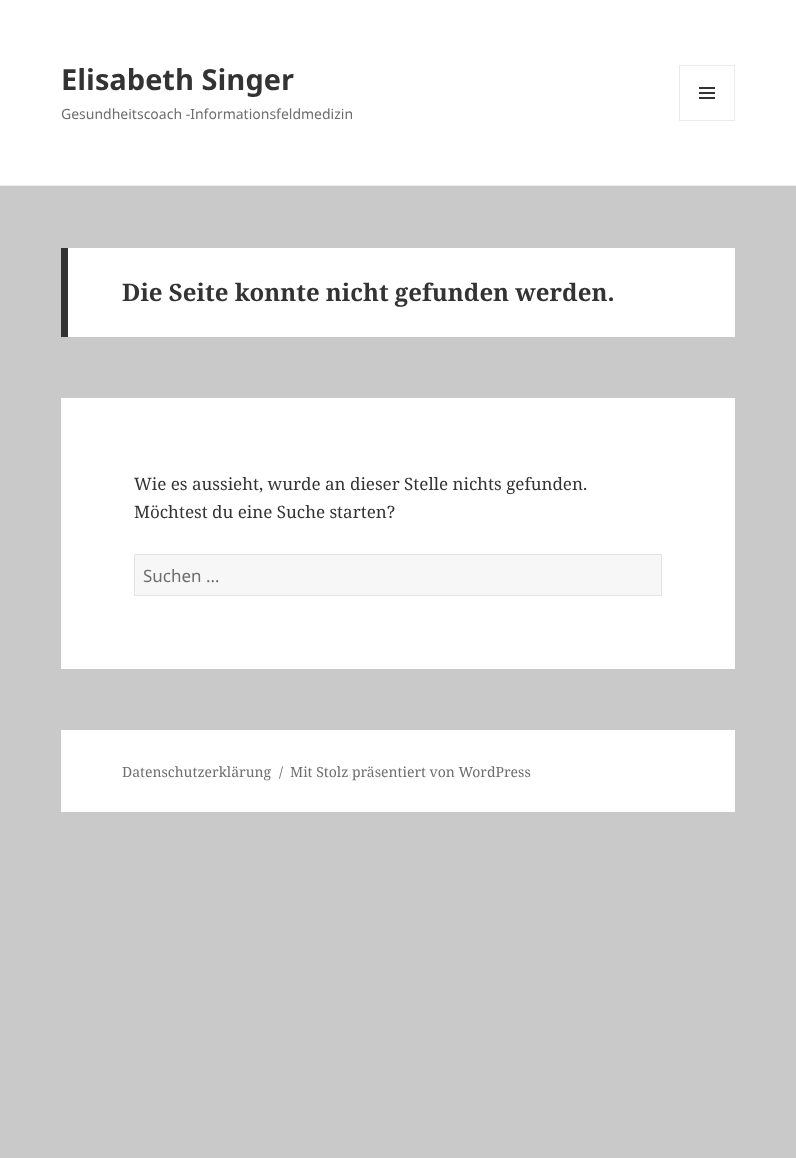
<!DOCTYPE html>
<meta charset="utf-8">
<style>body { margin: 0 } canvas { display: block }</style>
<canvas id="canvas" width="796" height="1158"></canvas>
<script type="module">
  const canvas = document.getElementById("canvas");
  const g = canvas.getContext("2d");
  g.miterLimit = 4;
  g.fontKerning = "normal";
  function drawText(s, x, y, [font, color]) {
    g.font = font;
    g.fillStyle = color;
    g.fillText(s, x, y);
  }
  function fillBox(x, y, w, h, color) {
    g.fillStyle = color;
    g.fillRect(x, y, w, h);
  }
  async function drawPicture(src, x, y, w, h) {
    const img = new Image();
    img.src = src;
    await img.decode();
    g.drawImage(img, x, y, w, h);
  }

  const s1 = ["bold 29px Noto Sans", "#333333"];
  const s2 = ["14px Noto Sans", "#6E6E6E"];
  const s3 = ["bold 24px Noto Serif", "#333333"];
  const s4 = ["17px Noto Serif", "#333333"];
  const s5 = ["17px Noto Sans", "#6E6E6E"];
  const s6 = ["14px Noto Serif", "#6E6E6E"];

  fillBox(0, 0, 796, 1158, "#C9C9C9");
  fillBox(0, 0, 796, 185, "#FFFFFF");
  fillBox(0, 185, 796, 1, "#EBEBEB");
  drawText("Elisabeth Singer", 61, 90, s1);
  g.strokeStyle = "#EBEBEB";
  g.strokeRect(679.5, 65.5, 55, 55);
  await drawPicture("pic1.png", 699, 87, 16, 12);
  drawText("Gesundheitscoach -Informationsfeldmedizin", 61, 119, s2);
  fillBox(68, 248, 667, 89, "#FFFFFF");
  fillBox(61, 248, 7, 89, "#333333");
  drawText("Die Seite konnte nicht gefunden werden.", 122, 301, s3);
  fillBox(61, 398, 674, 271, "#FFFFFF");
  drawText("Wie es aussieht, wurde an dieser Stelle nichts gefunden.", 134, 490, s4);
  drawText("Möchtest du eine Suche starten?", 134, 518, s4);
  g.fillStyle = "#F7F7F7";
  g.beginPath();
  g.rect(134.5, 554.5, 527, 41);
  g.fill();
  g.strokeStyle = "#E3E3E3";
  g.stroke();
  drawText("Suchen …", 143, 582, s5);
  fillBox(61, 730, 674, 82, "#FFFFFF");
  drawText("Datenschutzerklärung", 122, 777, s6);
  drawText("/", 279, 777, s6);
  drawText("Mit Stolz präsentiert von WordPress", 290, 777, s6);
</script>
